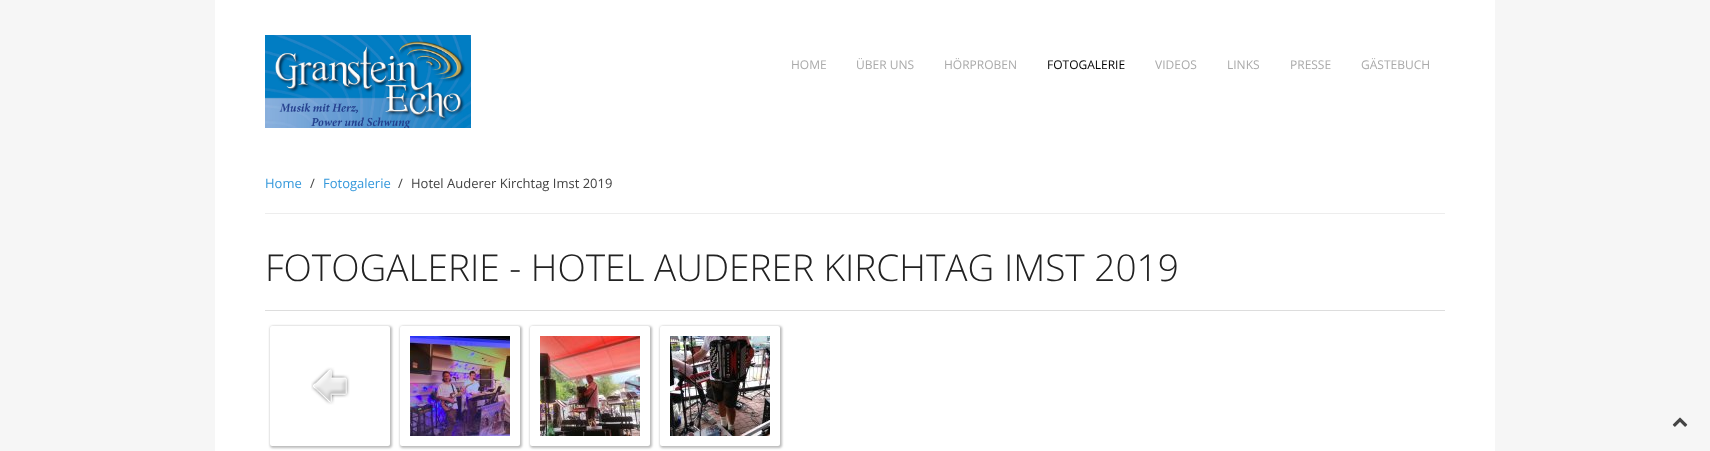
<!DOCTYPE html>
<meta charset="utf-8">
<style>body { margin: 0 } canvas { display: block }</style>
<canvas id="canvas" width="1710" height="451"></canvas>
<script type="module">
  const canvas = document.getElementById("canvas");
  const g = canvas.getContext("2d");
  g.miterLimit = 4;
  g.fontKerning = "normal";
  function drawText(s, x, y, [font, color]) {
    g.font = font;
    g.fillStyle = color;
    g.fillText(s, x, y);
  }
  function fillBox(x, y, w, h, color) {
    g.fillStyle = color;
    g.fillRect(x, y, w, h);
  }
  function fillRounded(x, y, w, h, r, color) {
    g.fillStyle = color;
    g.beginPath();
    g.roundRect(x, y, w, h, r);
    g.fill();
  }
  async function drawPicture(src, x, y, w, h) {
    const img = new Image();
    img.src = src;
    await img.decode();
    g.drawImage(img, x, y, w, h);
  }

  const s1 = ["12px Open Sans", "#AAAAAA"];
  const s2 = ["12px Open Sans", "#000000"];
  const s3 = ["13px Open Sans", "#3498DB"];
  const s4 = ["13px Open Sans", "#444444"];
  const s5 = ["300 37px Open Sans", "#222222"];

  fillBox(0, 0, 1710, 451, "#F6F6F6");
  fillBox(215, 0, 1280, 451, "#FFFFFF");
  await drawPicture("pic1.png", 265, 35, 206, 93);
  drawText("HOME", 791, 69, s1);
  drawText("ÜBER UNS", 856, 69, s1);
  drawText("HÖRPROBEN", 944, 69, s1);
  drawText("FOTOGALERIE", 1047, 69, s2);
  drawText("VIDEOS", 1155, 69, s1);
  drawText("LINKS", 1227, 69, s1);
  drawText("PRESSE", 1290, 69, s1);
  drawText("GÄSTEBUCH", 1361, 69, s1);
  fillBox(265, 213, 1180, 1, "#EDEDED");
  drawText("Home", 265, 188, s3);
  drawText("/", 310, 188, s4);
  drawText("Fotogalerie", 323, 188, s3);
  drawText("/", 398, 188, s4);
  drawText("Hotel Auderer Kirchtag Imst 2019", 411, 188, s4);
  fillBox(265, 310, 1180, 1, "#DDDDDD");
  drawText("FOTOGALERIE - HOTEL AUDERER KIRCHTAG IMST 2019", 265, 281, s5);
  g.fillStyle = "rgba(120, 120, 120, 0.5)";
  g.filter = "blur(1px)";
  g.beginPath();
  g.roundRect(270, 326, 122, 122, 3);
  g.fill();
  g.filter = "none";
  fillRounded(270, 326, 120, 120, 2, "#FFFFFF");
  await drawPicture("pic2.png", 311, 367, 39, 38);
  g.fillStyle = "rgba(120, 120, 120, 0.5)";
  g.filter = "blur(1px)";
  g.beginPath();
  g.roundRect(400, 326, 122, 122, 3);
  g.fill();
  g.filter = "none";
  fillRounded(400, 326, 120, 120, 2, "#FFFFFF");
  await drawPicture("pic3.png", 410, 336, 100, 100);
  g.fillStyle = "rgba(120, 120, 120, 0.5)";
  g.filter = "blur(1px)";
  g.beginPath();
  g.roundRect(530, 326, 122, 122, 3);
  g.fill();
  g.filter = "none";
  fillRounded(530, 326, 120, 120, 2, "#FFFFFF");
  await drawPicture("pic4.png", 540, 336, 100, 100);
  g.fillStyle = "rgba(120, 120, 120, 0.5)";
  g.filter = "blur(1px)";
  g.beginPath();
  g.roundRect(660, 326, 122, 122, 3);
  g.fill();
  g.filter = "none";
  fillRounded(660, 326, 120, 120, 2, "#FFFFFF");
  await drawPicture("pic5.png", 670, 336, 100, 100);
  await drawPicture("pic6.png", 1672, 417, 16, 10);
</script>
